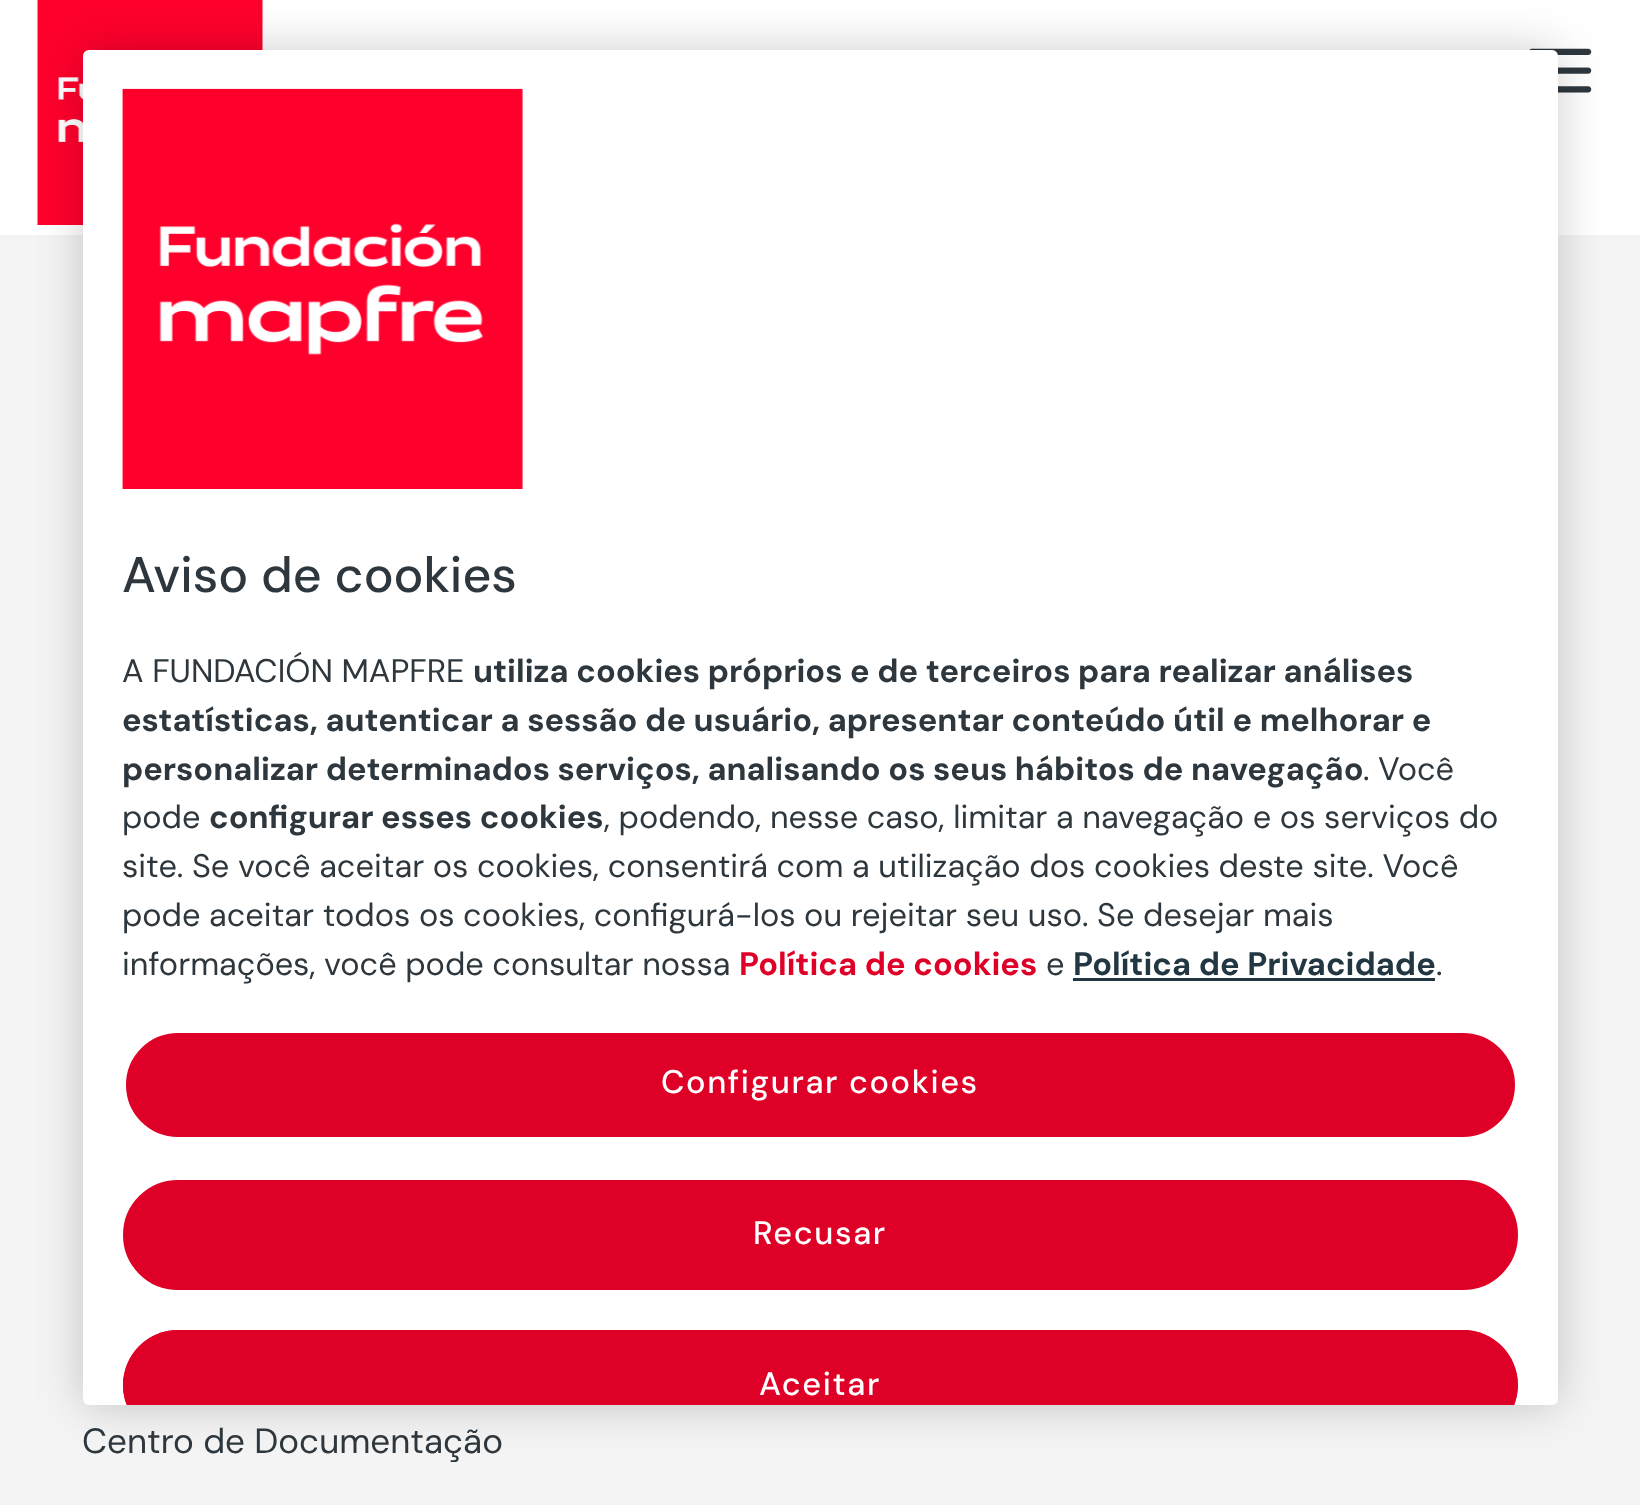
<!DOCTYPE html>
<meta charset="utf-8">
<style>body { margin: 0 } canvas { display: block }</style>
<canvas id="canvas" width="1640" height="1505"></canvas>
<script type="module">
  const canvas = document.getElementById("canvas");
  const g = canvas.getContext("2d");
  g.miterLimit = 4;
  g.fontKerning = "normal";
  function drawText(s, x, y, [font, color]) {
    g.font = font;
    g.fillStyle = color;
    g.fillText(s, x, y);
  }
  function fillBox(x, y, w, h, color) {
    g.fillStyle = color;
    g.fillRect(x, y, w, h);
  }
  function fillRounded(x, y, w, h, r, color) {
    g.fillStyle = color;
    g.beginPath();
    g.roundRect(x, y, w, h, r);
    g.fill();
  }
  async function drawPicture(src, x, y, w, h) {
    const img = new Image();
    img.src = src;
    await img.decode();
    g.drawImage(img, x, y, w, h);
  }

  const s1 = ["500 50px DM Sans", "#2D373D"];
  const s2 = ["32.5px DM Sans", "#2D373D"];
  const s3 = ["bold 32.5px DM Sans", "#2D373D"];
  const s4 = ["bold 32.5px DM Sans", "#DF0027"];
  const s5 = ["bold 32.5px DM Sans", "#233742"];
  const s6 = ["500 32.5px DM Sans", "#FFFFFF"];
  const s7 = ["35px DM Sans", "#2D373D"];

  fillBox(0, 0, 1640, 1505, "#F4F4F4");
  fillBox(0, 0, 1640, 235, "#FFFFFF");
  await drawPicture("pic2.png", 37, 0, 226, 225);
  await drawPicture("pic3.png", 1529, 48, 63, 45);
  g.fillStyle = "rgba(0, 0, 0, 0.2)";
  g.filter = "blur(22.5px)";
  g.beginPath();
  g.roundRect(83, 50, 1475, 1355, 6);
  g.fill();
  g.filter = "none";
  fillRounded(83, 50, 1475, 1355, 6, "#FFFFFF");
  await drawPicture("pic1.png", 122, 88, 401, 401);
  drawText("Aviso de cookies", 122, 592, s1);
  drawText("A FUNDACIÓN MAPFRE", 122, 682, s2);
  drawText("utiliza cookies próprios e de terceiros para realizar análises", 473, 682, s3);
  drawText("estatísticas, autenticar a sessão de usuário, apresentar conteúdo útil e melhorar e", 122, 731, s3);
  drawText("personalizar determinados serviços, analisando os seus hábitos de navegação", 122, 780, s3);
  drawText(". Você", 1363, 780, s2);
  drawText("pode", 122, 828, s2);
  drawText("configurar esses cookies", 209, 828, s3);
  drawText(", podendo, nesse caso, limitar a navegação e os serviços do", 604, 828, s2);
  drawText("site. Se você aceitar os cookies, consentirá com a utilização dos cookies deste site. Você", 122, 877, s2);
  drawText("pode aceitar todos os cookies, configurá-los ou rejeitar seu uso. Se desejar mais", 122, 926, s2);
  drawText("informações, você pode consultar nossa", 122, 975, s2);
  drawText("Política de cookies", 739, 975, s4);
  drawText("e", 1046, 975, s2);
  drawText("Política de Privacidade", 1073, 975, s5);
  fillBox(1073, 978, 362, 3, "#233742");
  drawText(".", 1436, 975, s2);
  g.fillStyle = "#DF0027";
  g.beginPath();
  g.roundRect(124.5, 1031.5, 1392, 107, 53.5);
  g.fill();
  g.strokeStyle = "#FFFFFF";
  g.lineWidth = 3;
  g.stroke();
  g.letterSpacing = "1.6px";
  drawText("Configurar cookies", 661, 1093, s6);
  g.fillStyle = "#DF0027";
  g.beginPath();
  g.roundRect(124.5, 1181.5, 1392, 107, 53.5);
  g.fill();
  g.strokeStyle = "#DF0027";
  g.stroke();
  drawText("Recusar", 753, 1244, s6);
  g.letterSpacing = "0px";
  drawText("Centro de Documentação", 82, 1453, s7);
  g.save();
  g.beginPath();
  g.roundRect(83, 50, 1475, 1355, 6);
  g.clip();
  fillRounded(123, 1330, 1395, 110, 55, "#DF0027");
  g.restore();
  g.fillStyle = "#DF0027";
  g.beginPath();
  g.moveTo(178, 1330);
  g.bezierCurveTo(139, 1330, 113, 1370, 127, 1405);
  g.lineTo(130, 1405);
  g.bezierCurveTo(116, 1371, 141, 1333, 178, 1333);
  g.lineTo(1463, 1333);
  g.lineTo(1473, 1334);
  g.bezierCurveTo(1506, 1341, 1523, 1375, 1511, 1405);
  g.lineTo(1514, 1405);
  g.bezierCurveTo(1528, 1370, 1502, 1330, 1463, 1330);
  g.closePath();
  g.fill();
  g.letterSpacing = "1.6px";
  drawText("Aceitar", 759, 1395, s6);
</script>
